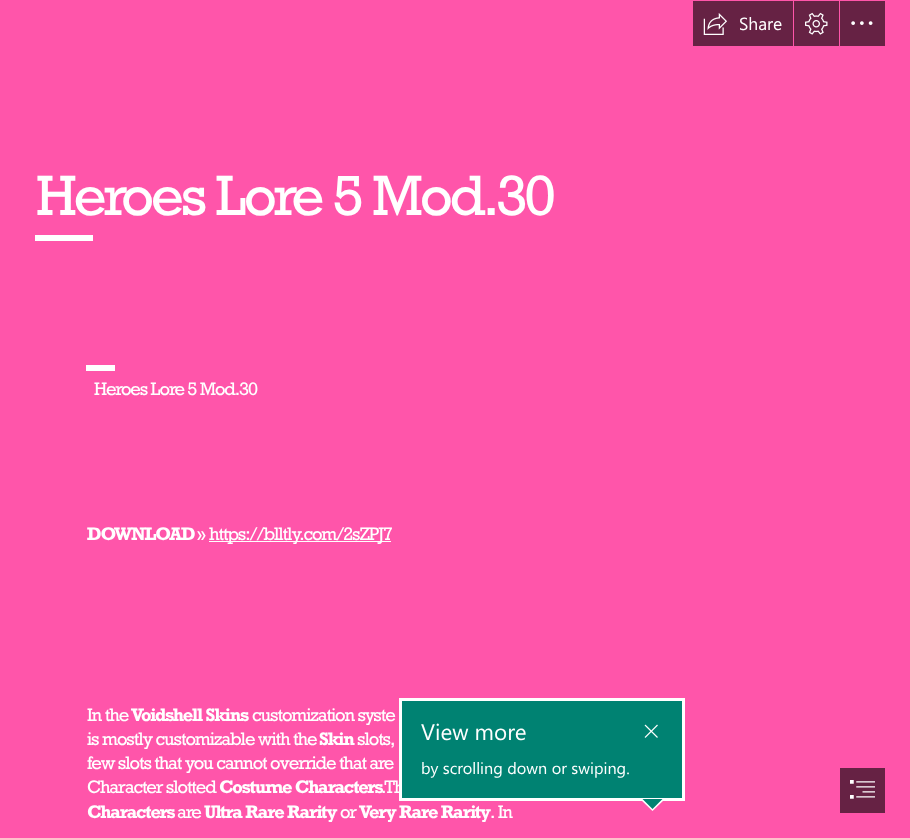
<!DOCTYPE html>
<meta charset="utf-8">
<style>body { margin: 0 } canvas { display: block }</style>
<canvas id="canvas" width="910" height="838"></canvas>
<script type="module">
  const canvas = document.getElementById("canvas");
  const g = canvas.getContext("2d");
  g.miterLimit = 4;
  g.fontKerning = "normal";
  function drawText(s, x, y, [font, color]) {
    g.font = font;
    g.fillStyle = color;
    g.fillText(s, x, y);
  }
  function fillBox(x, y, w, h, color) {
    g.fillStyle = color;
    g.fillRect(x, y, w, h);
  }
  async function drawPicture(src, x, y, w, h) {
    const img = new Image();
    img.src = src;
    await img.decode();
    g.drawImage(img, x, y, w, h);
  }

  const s1 = ["17.5px Segoe UI", "#FFFFFF"];
  const s2 = ["53.25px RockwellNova", "#FFFFFF"];
  const s3 = ["17.1px RockwellNova", "#FFFFFF"];
  const s4 = ["bold 17.1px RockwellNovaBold", "#FFFFFF"];
  const s5 = ["22.5px Segoe UI", "#FFFFFF"];
  const s6 = ["16.25px Segoe UI", "#FFFFFF"];

  fillBox(0, 0, 910, 838, "#FF55AA");
  fillBox(693, 1, 100, 45, "#662244");
  await drawPicture("pic1.png", 703, 13, 24, 22);
  drawText("Share", 739, 30, s1);
  fillBox(794, 1, 45, 45, "#662244");
  await drawPicture("pic2.png", 805, 12, 23, 23);
  fillBox(840, 1, 45, 45, "#662244");
  await drawPicture("pic3.png", 851, 21, 22, 4);
  g.letterSpacing = "-3.1px";
  drawText("Heroes Lore 5 Mod.30", 36, 215, s2);
  fillBox(35, 235, 58, 6, "#FFFFFF");
  fillBox(86, 365, 29, 6, "#FFFFFF");
  g.letterSpacing = "-1.15px";
  drawText("Heroes Lore 5 Mod.30", 94, 395, s3);
  drawText("DOWNLOAD", 87, 540, s4);
  drawText("»", 197, 540, s3);
  fillBox(209, 541, 182, 1, "#FFFFFF");
  drawText("https://blltly.com/2sZPJ7", 209, 540, s3);
  drawText("In the", 87, 721, s3);
  drawText("Voidshell Skins", 131, 721, s4);
  drawText("customization syste", 252, 721, s3);
  drawText("is mostly customizable with the", 87, 745, s3);
  drawText("Skin", 319, 745, s4);
  drawText("slots,", 357, 745, s3);
  drawText("few slots that you cannot override that are", 87, 769, s3);
  drawText("Character slotted", 87, 793, s3);
  drawText("Costume Characters", 219, 793, s4);
  drawText(".Th", 381, 793, s3);
  drawText("Characters", 87, 818, s4);
  drawText("are", 177, 818, s3);
  drawText("Ultra Rare Rarity", 204, 818, s4);
  drawText("or", 340, 818, s3);
  drawText("Very Rare Rarity", 359, 818, s4);
  drawText(". In", 490, 818, s3);
  g.fillStyle = "#008272";
  g.beginPath();
  g.rect(400.5, 699.5, 283, 100);
  g.fill();
  g.strokeStyle = "#FFFFFF";
  g.lineWidth = 3;
  g.stroke();
  g.letterSpacing = "0px";
  drawText("View more", 421, 740, s5);
  drawText("by scrolling down or swiping.", 421, 774, s6);
  await drawPicture("pic4.png", 644, 724, 14, 14);
  g.beginPath();
  g.moveTo(640, 799);
  g.lineTo(665, 799);
  g.lineTo(652.5, 811);
  g.closePath();
  g.fill();
  g.fillStyle = "#008272";
  g.beginPath();
  g.moveTo(642.5, 799);
  g.lineTo(662.5, 799);
  g.lineTo(652.5, 809);
  g.closePath();
  g.fill();
  fillBox(840, 768, 45, 45, "#662244");
  await drawPicture("pic5.png", 850, 780, 25, 19);
</script>
